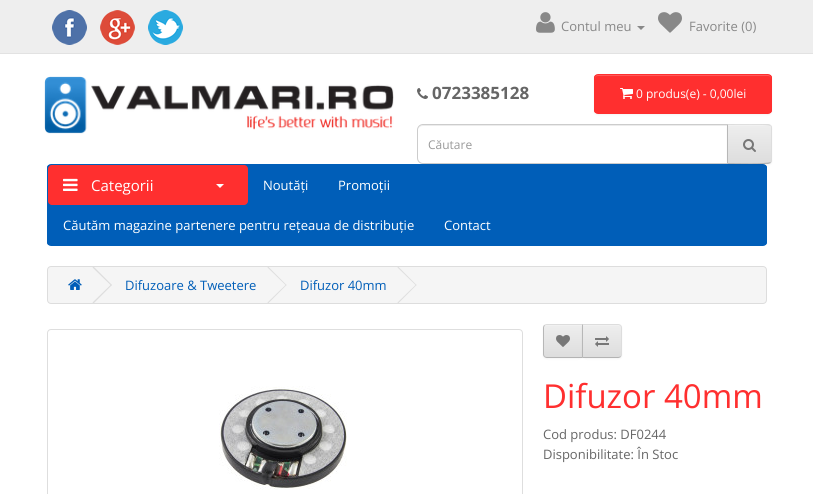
import math
import cairo


def use_color(cr, r, g, b):
  cr.set_source_rgb(r / 255, g / 255, b / 255)

def text(cr, x, y, s, family, size, color, bold=False, italic=False):
  cr.select_font_face(family, cairo.FONT_SLANT_ITALIC if italic else cairo.FONT_SLANT_NORMAL, cairo.FONT_WEIGHT_BOLD if bold else cairo.FONT_WEIGHT_NORMAL)
  cr.set_font_size(size)
  use_color(cr, *color)
  cr.move_to(x, y)
  cr.show_text(s)

def box(cr, x, y, w, h, *color):
  use_color(cr, *color)
  cr.rectangle(x, y, w, h)
  cr.fill()

def round_rect(cr, x, y, w, h, r):
  cr.new_sub_path()
  for i, (u, v) in enumerate([(x + w - r, y + h - r), (x + r, y + h - r), (x + r, y + r), (x + w - r, y + r)]):
    cr.arc(u, v, r, i * math.pi / 2, (i + 1) * math.pi / 2)
  cr.close_path()

def shadow(cr, x, y, w, h, r, blur, alpha):
  cr.push_group_with_content(cairo.CONTENT_ALPHA)
  cr.set_operator(cairo.OPERATOR_SOURCE)
  for i in range(15, -16, -2):
    e = blur * i / 6
    if min(w, h) + 2 * e > 0:
      cr.set_source_rgba(0, 0, 0, alpha * math.erfc((i - 1) / 8.5) / 2)
      round_rect(cr, x - e, y - e, w + 2 * e, h + 2 * e, max(0, min(r + e + blur * .6, min(w, h) / 2 + e)))
      cr.fill()
  cr.mask(cr.pop_group())

def picture(cr, path, x, y, w, h):
  cr.save()
  cr.set_source_surface(cairo.ImageSurface.create_from_png(path), x, y)
  cr.rectangle(x, y, w, h)
  cr.fill()
  cr.restore()

def draw(cr):
  use_color(cr, 255, 255, 255)
  cr.paint()
  box(cr, 0, 0, 813, 53, 238, 238, 238)
  box(cr, 0, 53, 813, 1, 226, 226, 226)
  picture(cr, "img_01.png", 52, 10, 35, 35)
  picture(cr, "img_02.png", 100, 10, 35, 35)
  picture(cr, "img_03.png", 148, 10, 35, 35)
  picture(cr, "img_04.png", 536, 12, 19, 21)
  use_color(cr, 136, 136, 136)
  cr.new_path()
  cr.move_to(637, 26)
  cr.line_to(645, 26)
  cr.line_to(641, 30)
  cr.close_path()
  cr.fill()
  picture(cr, "img_05.png", 658, 12, 24, 21)
  picture(cr, "img_06.png", 44, 76, 350, 58)
  picture(cr, "img_07.png", 417, 88, 11, 11)
  use_color(cr, 0, 0, 0)
  shadow(cr, 594, 75, 178, 40, 4, 1, 0.05)
  cr.save()
  round_rect(cr, 594, 74, 178, 40, 4)
  cr.clip()
  box(cr, 594, 75, 178, 38, 255, 47, 47)
  cr.restore()
  use_color(cr, 255, 89, 89)
  cr.new_path()
  cr.move_to(598, 76)
  cr.line_to(768, 76)
  cr.curve_to(770, 76, 771, 77, 771, 79)
  cr.line_to(771, 78)
  cr.curve_to(771, 76, 770, 75, 768, 75)
  cr.line_to(598, 75)
  cr.curve_to(596, 75, 595, 76, 595, 78)
  cr.line_to(595, 79)
  cr.curve_to(595, 77, 596, 76, 598, 76)
  cr.close_path()
  cr.fill()
  round_rect(cr, 594.5, 74.5, 177, 39, 3.5)
  use_color(cr, 255, 47, 47)
  cr.set_line_width(1)
  cr.stroke()
  picture(cr, "img_08.png", 620, 88, 13, 11)
  use_color(cr, 236, 236, 236)
  cr.new_path()
  cr.move_to(423, 126)
  cr.line_to(727, 126)
  cr.line_to(727, 125)
  cr.line_to(423, 125)
  cr.curve_to(420, 125, 418, 128, 418, 131)
  cr.curve_to(418, 128, 420, 126, 423, 126)
  cr.close_path()
  cr.fill()
  cr.new_path()
  cr.move_to(423, 124.5)
  cr.line_to(727.5, 124.5)
  cr.line_to(727.5, 163.5)
  cr.line_to(423, 163.5)
  cr.curve_to(420, 163.5, 417.5, 161, 417.5, 158)
  cr.line_to(417.5, 130)
  cr.curve_to(417.5, 127, 420, 124.5, 423, 124.5)
  cr.close_path()
  use_color(cr, 204, 204, 204)
  cr.stroke()
  cr.save()
  round_rect(cr, 47, 164, 720, 82, 4)
  cr.clip()
  box(cr, 47, 165, 720, 80, 0, 94, 184)
  cr.restore()
  round_rect(cr, 47.5, 164.5, 719, 81, 3.5)
  use_color(cr, 0, 94, 184)
  cr.stroke()
  use_color(cr, 0, 0, 0)
  shadow(cr, 727, 125, 45, 40, 4, 1, 0.05)
  use_color(cr, 231, 231, 231)
  cr.new_path()
  cr.move_to(727, 124)
  cr.line_to(768, 124)
  cr.curve_to(770, 124, 772, 126, 772, 128)
  cr.line_to(772, 160)
  cr.curve_to(772, 162, 770, 164, 768, 164)
  cr.line_to(727, 164)
  cr.close_path()
  cr.fill()
  cr.save()
  cr.new_path()
  cr.move_to(727, 124)
  cr.line_to(768, 124)
  cr.curve_to(770, 124, 772, 126, 772, 128)
  cr.line_to(772, 160)
  cr.curve_to(772, 162, 770, 164, 768, 164)
  cr.line_to(727, 164)
  cr.close_path()
  cr.clip()
  gradient = cairo.LinearGradient(750, 125, 750, 163)
  gradient.add_color_stop_rgba(0, 0.933, 0.933, 0.933, 1)
  gradient.add_color_stop_rgba(1, 0.867, 0.867, 0.867, 1)
  cr.set_source(gradient)
  cr.rectangle(728, 125, 44, 38)
  cr.fill()
  cr.restore()
  use_color(cr, 241, 241, 241)
  cr.new_path()
  cr.move_to(728, 126)
  cr.line_to(768, 126)
  cr.curve_to(770, 126, 771, 127, 771, 129)
  cr.line_to(771, 128)
  cr.curve_to(771, 126, 770, 125, 768, 125)
  cr.line_to(728, 125)
  cr.close_path()
  cr.fill()
  use_color(cr, 221, 221, 221)
  cr.new_path()
  cr.move_to(727, 124)
  cr.line_to(728, 125)
  cr.curve_to(733, 125, 768, 124, 770, 126)
  cr.line_to(771, 125)
  cr.line_to(768, 124)
  cr.close_path()
  cr.fill()
  cr.new_path()
  cr.move_to(772, 160)
  cr.line_to(772, 128)
  cr.curve_to(772, 127, 771.5, 126, 771, 125)
  cr.line_to(770, 126)
  cr.curve_to(771, 126, 771, 127, 771, 128)
  cr.line_to(771, 160)
  cr.curve_to(771, 161, 771, 162, 770, 162)
  cr.line_to(771, 163)
  cr.curve_to(771.5, 162, 772, 161, 772, 160)
  cr.close_path()
  cr.fill()
  use_color(cr, 179, 179, 179)
  cr.new_path()
  cr.move_to(768, 164)
  cr.line_to(771, 163)
  cr.line_to(770, 162)
  cr.curve_to(768, 164, 733, 163, 728, 163)
  cr.line_to(727, 164)
  cr.close_path()
  cr.fill()
  use_color(cr, 183, 183, 183)
  cr.new_path()
  cr.move_to(727, 124)
  cr.line_to(727, 164)
  cr.line_to(728, 163)
  cr.line_to(728, 125)
  cr.close_path()
  cr.fill()
  picture(cr, "img_09.png", 743, 139, 13, 13)
  use_color(cr, 255, 47, 47)
  round_rect(cr, 48, 165, 200, 40, 4)
  cr.fill()
  picture(cr, "img_10.png", 63, 178, 15, 13)
  use_color(cr, 255, 255, 255)
  cr.new_path()
  cr.move_to(216, 184)
  cr.line_to(224, 184)
  cr.line_to(220, 188)
  cr.close_path()
  cr.fill()
  use_color(cr, 245, 245, 245)
  round_rect(cr, 47.5, 266.5, 719, 37, 3.5)
  cr.fill_preserve()
  use_color(cr, 221, 221, 221)
  cr.stroke()
  picture(cr, "img_11.png", 68, 279, 14, 11)
  cr.new_path()
  cr.move_to(92.5, 267.5)
  cr.line_to(93.5, 266.5)
  cr.line_to(112, 285)
  cr.line_to(111, 285.5)
  cr.close_path()
  cr.fill()
  cr.new_path()
  cr.move_to(92.5, 302.5)
  cr.line_to(111, 284.5)
  cr.line_to(112, 285)
  cr.line_to(93.5, 303.5)
  cr.close_path()
  cr.fill()
  cr.new_path()
  cr.move_to(267.5, 267.5)
  cr.line_to(268, 266.5)
  cr.line_to(286.5, 285)
  cr.line_to(286, 285.5)
  cr.close_path()
  cr.fill()
  cr.new_path()
  cr.move_to(267.5, 302.5)
  cr.line_to(286, 284.5)
  cr.line_to(286.5, 285)
  cr.line_to(268, 303.5)
  cr.close_path()
  cr.fill()
  cr.new_path()
  cr.move_to(397.5, 267.5)
  cr.line_to(398, 266.5)
  cr.line_to(416.5, 285)
  cr.line_to(416, 285.5)
  cr.close_path()
  cr.fill()
  cr.new_path()
  cr.move_to(397.5, 302.5)
  cr.line_to(416, 284.5)
  cr.line_to(416.5, 285)
  cr.line_to(398, 303.5)
  cr.close_path()
  cr.fill()
  round_rect(cr, 47.5, 329.5, 475, 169, 3.5)
  use_color(cr, 222, 222, 222)
  cr.stroke()
  picture(cr, "img_12.png", 219, 386, 128, 104)
  use_color(cr, 0, 0, 0)
  shadow(cr, 543, 325, 40, 34, 4, 1, 0.05)
  cr.save()
  cr.new_path()
  cr.move_to(547, 324)
  cr.line_to(583, 324)
  cr.line_to(583, 358)
  cr.line_to(547, 358)
  cr.curve_to(545, 358, 543, 356, 543, 354)
  cr.line_to(543, 328)
  cr.curve_to(543, 326, 545, 324, 547, 324)
  cr.close_path()
  cr.clip()
  gradient = cairo.LinearGradient(563, 325, 563, 357)
  gradient.add_color_stop_rgba(0, 0.933, 0.933, 0.933, 1)
  gradient.add_color_stop_rgba(1, 0.867, 0.867, 0.867, 1)
  cr.set_source(gradient)
  cr.rectangle(543, 325, 39, 32)
  cr.fill()
  cr.restore()
  use_color(cr, 241, 241, 241)
  cr.new_path()
  cr.move_to(547, 326)
  cr.line_to(582, 326)
  cr.line_to(582, 325)
  cr.line_to(547, 325)
  cr.curve_to(545.5, 325, 544, 326.5, 544, 328)
  cr.line_to(544, 329)
  cr.curve_to(544, 327, 545, 326, 547, 326)
  cr.close_path()
  cr.fill()
  use_color(cr, 221, 221, 221)
  cr.new_path()
  cr.move_to(547, 324)
  cr.curve_to(546, 324, 545, 324.5, 544, 325)
  cr.line_to(545, 326)
  cr.curve_to(545, 325, 546, 325, 547, 325)
  cr.line_to(582, 325)
  cr.line_to(583, 324)
  cr.close_path()
  cr.fill()
  use_color(cr, 179, 179, 179)
  cr.new_path()
  cr.move_to(583, 358)
  cr.line_to(582, 357)
  cr.line_to(547, 357)
  cr.curve_to(546, 357, 545, 357, 545, 356)
  cr.line_to(544, 357)
  cr.curve_to(545, 357.5, 546, 358, 547, 358)
  cr.close_path()
  cr.fill()
  use_color(cr, 183, 183, 183)
  cr.new_path()
  cr.move_to(543, 328)
  cr.line_to(543, 354)
  cr.curve_to(543, 355, 543.5, 356, 544, 357)
  cr.line_to(545, 356)
  cr.curve_to(544, 356, 544, 355, 544, 354)
  cr.line_to(544, 328)
  cr.curve_to(544, 327, 544, 326, 545, 326)
  cr.line_to(544, 325)
  cr.curve_to(543.5, 326, 543, 327, 543, 328)
  cr.close_path()
  cr.fill()
  picture(cr, "img_13.png", 556, 335, 14, 12)
  use_color(cr, 0, 0, 0)
  shadow(cr, 582, 325, 40, 34, 4, 1, 0.05)
  cr.save()
  cr.new_path()
  cr.move_to(582, 324)
  cr.line_to(618, 324)
  cr.curve_to(620, 324, 622, 326, 622, 328)
  cr.line_to(622, 354)
  cr.curve_to(622, 356, 620, 358, 618, 358)
  cr.line_to(582, 358)
  cr.close_path()
  cr.clip()
  gradient = cairo.LinearGradient(602, 325, 602, 357)
  gradient.add_color_stop_rgba(0, 0.933, 0.933, 0.933, 1)
  gradient.add_color_stop_rgba(1, 0.867, 0.867, 0.867, 1)
  cr.set_source(gradient)
  cr.rectangle(583, 325, 39, 32)
  cr.fill()
  cr.restore()
  use_color(cr, 241, 241, 241)
  cr.new_path()
  cr.move_to(583, 326)
  cr.line_to(618, 326)
  cr.curve_to(620, 326, 621, 327, 621, 329)
  cr.line_to(621, 328)
  cr.curve_to(621, 326.5, 619.5, 325, 618, 325)
  cr.line_to(583, 325)
  cr.close_path()
  cr.fill()
  use_color(cr, 221, 221, 221)
  cr.new_path()
  cr.move_to(582, 324)
  cr.line_to(583, 325)
  cr.line_to(618, 325)
  cr.curve_to(619, 325, 620, 325, 620, 326)
  cr.line_to(621, 325)
  cr.curve_to(620, 324.5, 619, 324, 618, 324)
  cr.close_path()
  cr.fill()
  cr.new_path()
  cr.move_to(622, 354)
  cr.line_to(622, 328)
  cr.curve_to(622, 327, 621.5, 326, 621, 325)
  cr.line_to(620, 326)
  cr.curve_to(621, 326, 621, 327, 621, 328)
  cr.line_to(621, 354)
  cr.curve_to(621, 355, 621, 356, 620, 356)
  cr.line_to(621, 357)
  cr.curve_to(621.5, 356, 622, 355, 622, 354)
  cr.close_path()
  cr.fill()
  use_color(cr, 179, 179, 179)
  cr.new_path()
  cr.move_to(618, 358)
  cr.curve_to(619, 358, 620, 357.5, 621, 357)
  cr.line_to(620, 356)
  cr.curve_to(620, 357, 619, 357, 618, 357)
  cr.line_to(583, 357)
  cr.line_to(582, 358)
  cr.close_path()
  cr.fill()
  use_color(cr, 183, 183, 183)
  cr.new_path()
  cr.move_to(582, 324)
  cr.line_to(582, 358)
  cr.line_to(583, 357)
  cr.line_to(583, 325)
  cr.close_path()
  cr.fill()
  picture(cr, "img_14.png", 595, 336, 14, 11)
  text(cr, 561, 31, "Contul meu", "Open Sans", 13, (136, 136, 136))
  text(cr, 689, 31, "Favorite (0)", "Open Sans", 13, (136, 136, 136))
  text(cr, 432, 99, "0723385128", "Open Sans", 17, (102, 102, 102), bold=True)
  text(cr, 636, 98, "0 produs(e) - 0,00lei", "Open Sans", 12, (255, 255, 255))
  text(cr, 428, 149, "Căutare", "Open Sans", 12, (153, 153, 153))
  text(cr, 91, 191, "Categorii", "Open Sans", 15, (255, 255, 255))
  text(cr, 263, 190, "Noutăți", "Open Sans", 13, (255, 255, 255))
  text(cr, 338, 190, "Promoții", "Open Sans", 13, (255, 255, 255))
  text(cr, 63, 230, "Căutăm magazine partenere pentru rețeaua de distribuție", "Open Sans", 13, (255, 255, 255))
  text(cr, 444, 230, "Contact", "Open Sans", 13, (255, 255, 255))
  text(cr, 125, 290, "Difuzoare & Tweetere", "Open Sans", 13, (0, 94, 184))
  text(cr, 300, 290, "Difuzor 40mm", "Open Sans", 13, (0, 94, 184))
  text(cr, 543, 408, "Difuzor 40mm", "Open Sans", 33, (255, 47, 47))
  text(cr, 543, 439, "Cod produs: DF0244", "Open Sans", 13, (102, 102, 102))
  text(cr, 543, 459, "Disponibilitate: În Stoc", "Open Sans", 13, (102, 102, 102))


surface = cairo.ImageSurface(cairo.FORMAT_RGB24, 813, 494)
cr = cairo.Context(surface)
options = cairo.FontOptions()
options.set_hint_metrics(cairo.HINT_METRICS_OFF)
options.set_hint_style(cairo.HINT_STYLE_NONE)
cr.set_font_options(options)
cr.set_miter_limit(4)
draw(cr)
surface.write_to_png("out.png")
